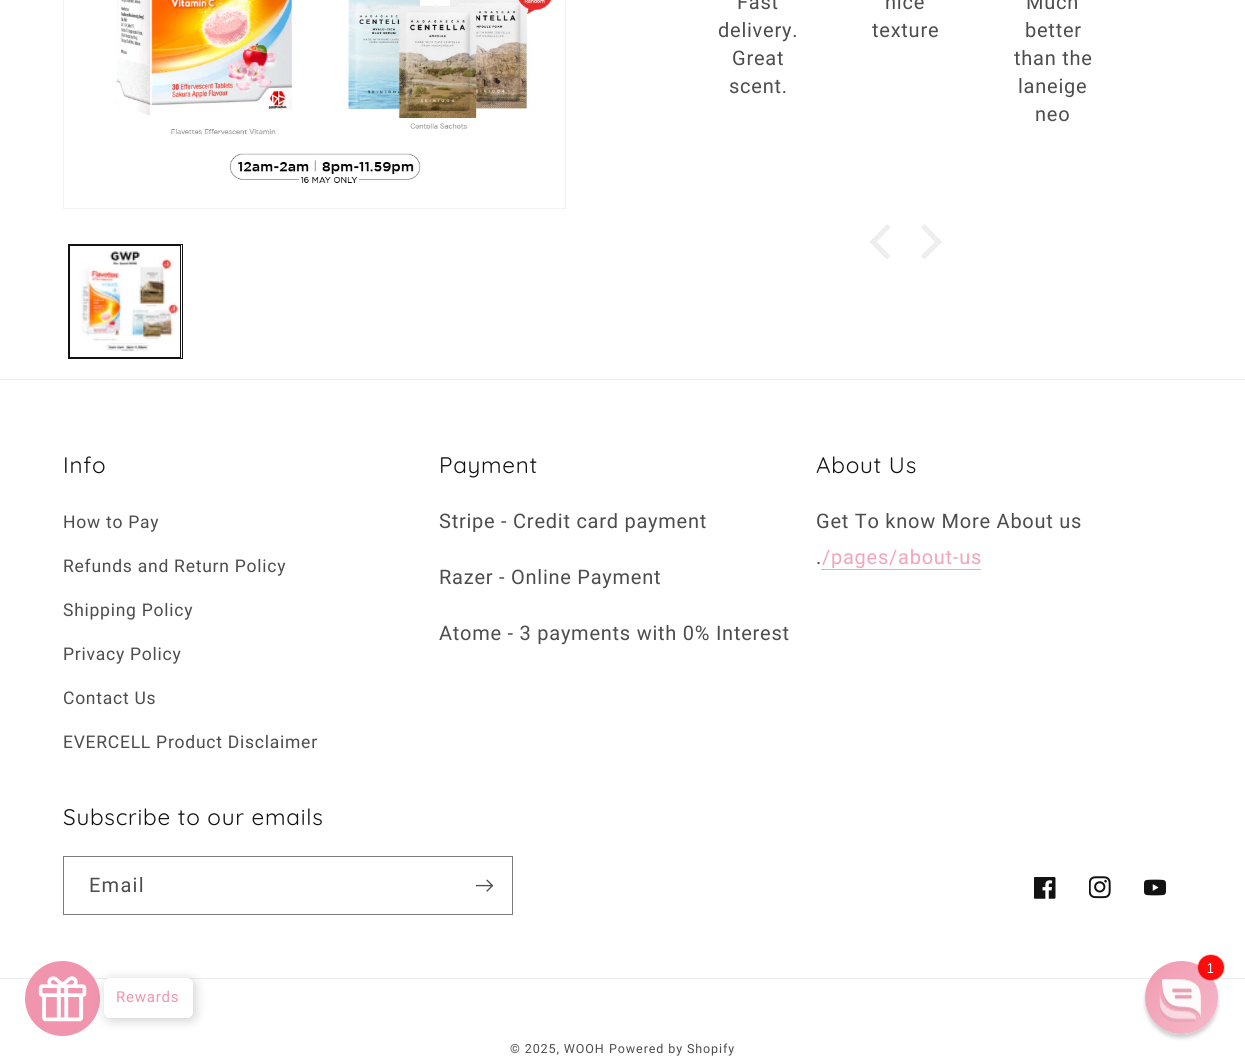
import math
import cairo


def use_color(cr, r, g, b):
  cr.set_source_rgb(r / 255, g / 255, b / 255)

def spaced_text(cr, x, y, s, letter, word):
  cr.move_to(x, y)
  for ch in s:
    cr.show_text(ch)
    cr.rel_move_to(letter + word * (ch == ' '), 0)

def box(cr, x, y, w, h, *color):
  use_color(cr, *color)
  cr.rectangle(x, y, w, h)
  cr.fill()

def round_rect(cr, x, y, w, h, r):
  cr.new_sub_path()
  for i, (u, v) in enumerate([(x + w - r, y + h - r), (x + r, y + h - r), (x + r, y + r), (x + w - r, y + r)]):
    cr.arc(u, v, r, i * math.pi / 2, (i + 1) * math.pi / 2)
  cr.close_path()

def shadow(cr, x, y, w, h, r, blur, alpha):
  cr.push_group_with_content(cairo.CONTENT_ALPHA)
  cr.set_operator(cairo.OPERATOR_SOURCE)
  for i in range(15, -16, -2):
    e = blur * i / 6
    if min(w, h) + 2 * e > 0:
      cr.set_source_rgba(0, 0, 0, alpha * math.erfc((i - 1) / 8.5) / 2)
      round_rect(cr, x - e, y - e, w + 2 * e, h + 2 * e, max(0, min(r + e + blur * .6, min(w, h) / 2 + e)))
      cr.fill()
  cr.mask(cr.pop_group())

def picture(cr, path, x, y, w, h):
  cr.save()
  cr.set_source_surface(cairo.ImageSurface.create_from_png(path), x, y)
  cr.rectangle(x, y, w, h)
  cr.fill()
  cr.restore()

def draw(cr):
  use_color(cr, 255, 255, 255)
  cr.paint()
  cr.rectangle(63.5, -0.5, 502, 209)
  use_color(cr, 243, 243, 243)
  cr.set_line_width(1)
  cr.stroke()
  picture(cr, "img_01.png", 116, 0, 437, 185)
  cr.rectangle(68.5, 244.5, 114, 114)
  use_color(cr, 18, 18, 18)
  cr.stroke()
  cr.rectangle(69.5, 245.5, 111, 112)
  cr.stroke()
  picture(cr, "img_02.png", 81, 251, 99, 101)
  use_color(cr, 238, 238, 238)
  cr.new_path()
  cr.move_to(869.5, 242)
  cr.line_to(887, 224)
  cr.line_to(890.5, 227.5)
  cr.line_to(873, 245.5)
  cr.close_path()
  cr.fill()
  cr.new_path()
  cr.move_to(869.5, 242)
  cr.line_to(873, 238)
  cr.line_to(890.5, 256)
  cr.line_to(887, 259.5)
  cr.close_path()
  cr.fill()
  cr.new_path()
  cr.move_to(921, 227.5)
  cr.line_to(924.5, 224)
  cr.line_to(942, 242)
  cr.line_to(938.5, 245.5)
  cr.close_path()
  cr.fill()
  cr.new_path()
  cr.move_to(921, 256)
  cr.line_to(938.5, 238)
  cr.line_to(942, 242)
  cr.line_to(924.5, 259.5)
  cr.close_path()
  cr.fill()
  box(cr, 0, 978, 1245, 1, 236, 236, 236)
  use_color(cr, 240, 149, 173)
  cr.arc(62.5, 998.5, 37.5, 0, 2 * math.pi)
  cr.fill()
  picture(cr, "img_03.png", 38, 976, 49, 46)
  box(cr, 0, 379, 1245, 1, 236, 236, 236)
  box(cr, 821, 569, 160, 1, 242, 165, 185)
  cr.rectangle(63.5, 856.5, 449, 58)
  use_color(cr, 125, 125, 125)
  cr.stroke()
  picture(cr, "img_04.png", 475, 879, 18, 13)
  picture(cr, "img_05.png", 1034, 877, 22, 22)
  picture(cr, "img_06.png", 1089, 876, 22, 23)
  picture(cr, "img_07.png", 1144, 879, 22, 17)
  cr.save()
  cr.set_fill_rule(cairo.FILL_RULE_EVEN_ODD)
  cr.new_path()
  cr.move_to(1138, 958)
  cr.line_to(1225, 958)
  cr.line_to(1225, 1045)
  cr.line_to(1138, 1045)
  cr.close_path()
  cr.move_to(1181.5, 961)
  cr.curve_to(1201.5, 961, 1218, 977.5, 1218, 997.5)
  cr.curve_to(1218, 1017.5, 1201.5, 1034, 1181.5, 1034)
  cr.curve_to(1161.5, 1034, 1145, 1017.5, 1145, 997.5)
  cr.curve_to(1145, 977.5, 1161.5, 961, 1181.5, 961)
  cr.close_path()
  cr.clip()
  use_color(cr, 0, 0, 0)
  shadow(cr, 1145, 965, 73, 73, 36.5, 2, 0.19)
  cr.restore()
  gradient = cairo.LinearGradient(1145, 961, 1218, 1034)
  gradient.add_color_stop_rgba(0, 0.941, 0.584, 0.678, 0.95)
  gradient.add_color_stop_rgba(1, 0.961, 0.71, 0.776, 0.95)
  cr.set_source(gradient)
  cr.arc(1181.5, 997.5, 36.5, 0, 2 * math.pi)
  cr.fill()
  picture(cr, "img_08.png", 1159, 979, 42, 43)
  cr.save()
  cr.set_fill_rule(cairo.FILL_RULE_EVEN_ODD)
  cr.new_path()
  cr.move_to(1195, 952)
  cr.line_to(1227, 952)
  cr.line_to(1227, 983)
  cr.line_to(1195, 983)
  cr.close_path()
  cr.move_to(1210.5, 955)
  cr.line_to(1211.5, 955)
  cr.curve_to(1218.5, 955, 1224, 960.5, 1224, 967.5)
  cr.curve_to(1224, 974.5, 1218.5, 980, 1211.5, 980)
  cr.line_to(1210.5, 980)
  cr.curve_to(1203.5, 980, 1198, 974.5, 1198, 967.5)
  cr.curve_to(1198, 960.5, 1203.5, 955, 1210.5, 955)
  cr.close_path()
  cr.clip()
  use_color(cr, 187, 0, 0)
  shadow(cr, 1198, 955, 26, 25, 12.5, 0.5, 0.95)
  cr.restore()
  cr.set_source_rgba(1, 0, 0, 0.95)
  round_rect(cr, 1198, 955, 26, 25, 12.5)
  cr.fill()
  use_color(cr, 0, 0, 0)
  shadow(cr, 106, 980, 89, 40, 6, 6, 0.2)
  use_color(cr, 255, 255, 255)
  round_rect(cr, 104, 978, 89, 40, 6)
  cr.fill()
  cr.select_font_face("Roboto")
  cr.set_font_size(20)
  use_color(cr, 77, 77, 77)
  spaced_text(cr, 737, 9, "Fast", 0.75, 0)
  spaced_text(cr, 718, 37, "delivery.", 0.75, 0)
  spaced_text(cr, 732, 65, "Great", 0.75, 0)
  spaced_text(cr, 729, 93, "scent.", 0.75, 0)
  spaced_text(cr, 885, 9, "nice", 0.75, 0)
  spaced_text(cr, 872, 37, "texture", 0.75, 0)
  spaced_text(cr, 1026, 9, "Much", 0.75, 0)
  spaced_text(cr, 1025, 37, "better", 0.75, 0)
  spaced_text(cr, 1014, 65, "than the", 0.75, 0)
  spaced_text(cr, 1018, 93, "laneige", 0.75, 0)
  spaced_text(cr, 1035, 121, "neo", 0.75, 0)
  cr.select_font_face("Quicksand")
  cr.set_font_size(22.5)
  use_color(cr, 18, 18, 18)
  spaced_text(cr, 63, 473, "Info", 0.75, 0)
  cr.select_font_face("Roboto")
  cr.set_font_size(17.5)
  use_color(cr, 77, 77, 77)
  spaced_text(cr, 63, 528, "How to Pay", 0.75, 0)
  spaced_text(cr, 63, 572, "Refunds and Return Policy", 0.75, 0)
  spaced_text(cr, 63, 616, "Shipping Policy", 0.75, 0)
  spaced_text(cr, 63, 660, "Privacy Policy", 0.75, 0)
  spaced_text(cr, 63, 704, "Contact Us", 0.75, 0)
  spaced_text(cr, 63, 748, "EVERCELL Product Disclaimer", 0.75, 0)
  cr.select_font_face("Quicksand")
  cr.set_font_size(22.5)
  use_color(cr, 18, 18, 18)
  spaced_text(cr, 439, 473, "Payment", 0.75, 0)
  cr.select_font_face("Roboto")
  cr.set_font_size(20)
  use_color(cr, 77, 77, 77)
  spaced_text(cr, 439, 528, "Stripe - Credit card payment", 0.75, 0)
  spaced_text(cr, 439, 584, "Razer - Online Payment", 0.75, 0)
  spaced_text(cr, 439, 640, "Atome - 3 payments with 0% Interest", 0.75, 0)
  cr.select_font_face("Quicksand")
  cr.set_font_size(22.5)
  use_color(cr, 18, 18, 18)
  spaced_text(cr, 816, 473, "About Us", 0.75, 0)
  cr.select_font_face("Roboto")
  cr.set_font_size(20)
  use_color(cr, 77, 77, 77)
  spaced_text(cr, 816, 528, "Get To know More About us", 0.75, 0)
  spaced_text(cr, 816, 564, ".", 0.75, 0)
  use_color(cr, 242, 165, 185)
  spaced_text(cr, 822, 564, "/pages/about-us", 0.75, 0)
  cr.select_font_face("Quicksand")
  cr.set_font_size(22.5)
  use_color(cr, 18, 18, 18)
  spaced_text(cr, 63, 825, "Subscribe to our emails", 0.75, 0)
  cr.select_font_face("Roboto")
  cr.set_font_size(20)
  use_color(cr, 77, 77, 77)
  spaced_text(cr, 89, 892, "Email", 1.25, 0)
  cr.set_font_size(12.5)
  spaced_text(cr, 510, 1053, "© 2025, WOOH", 0.9, 0)
  spaced_text(cr, 609, 1053, "Powered by Shopify", 0.9, 0)
  cr.select_font_face("Nunito")
  cr.set_font_size(14)
  use_color(cr, 253, 253, 253)
  spaced_text(cr, 1206, 973, "1", 0.75, 0)
  cr.select_font_face("Roboto")
  cr.set_font_size(15)
  use_color(cr, 240, 149, 173)
  spaced_text(cr, 116, 1002, "Rewards", 0.75, 0)


surface = cairo.ImageSurface(cairo.FORMAT_RGB24, 1245, 1061)
cr = cairo.Context(surface)
options = cairo.FontOptions()
options.set_hint_metrics(cairo.HINT_METRICS_OFF)
options.set_hint_style(cairo.HINT_STYLE_NONE)
cr.set_font_options(options)
cr.set_miter_limit(4)
draw(cr)
surface.write_to_png("out.png")
